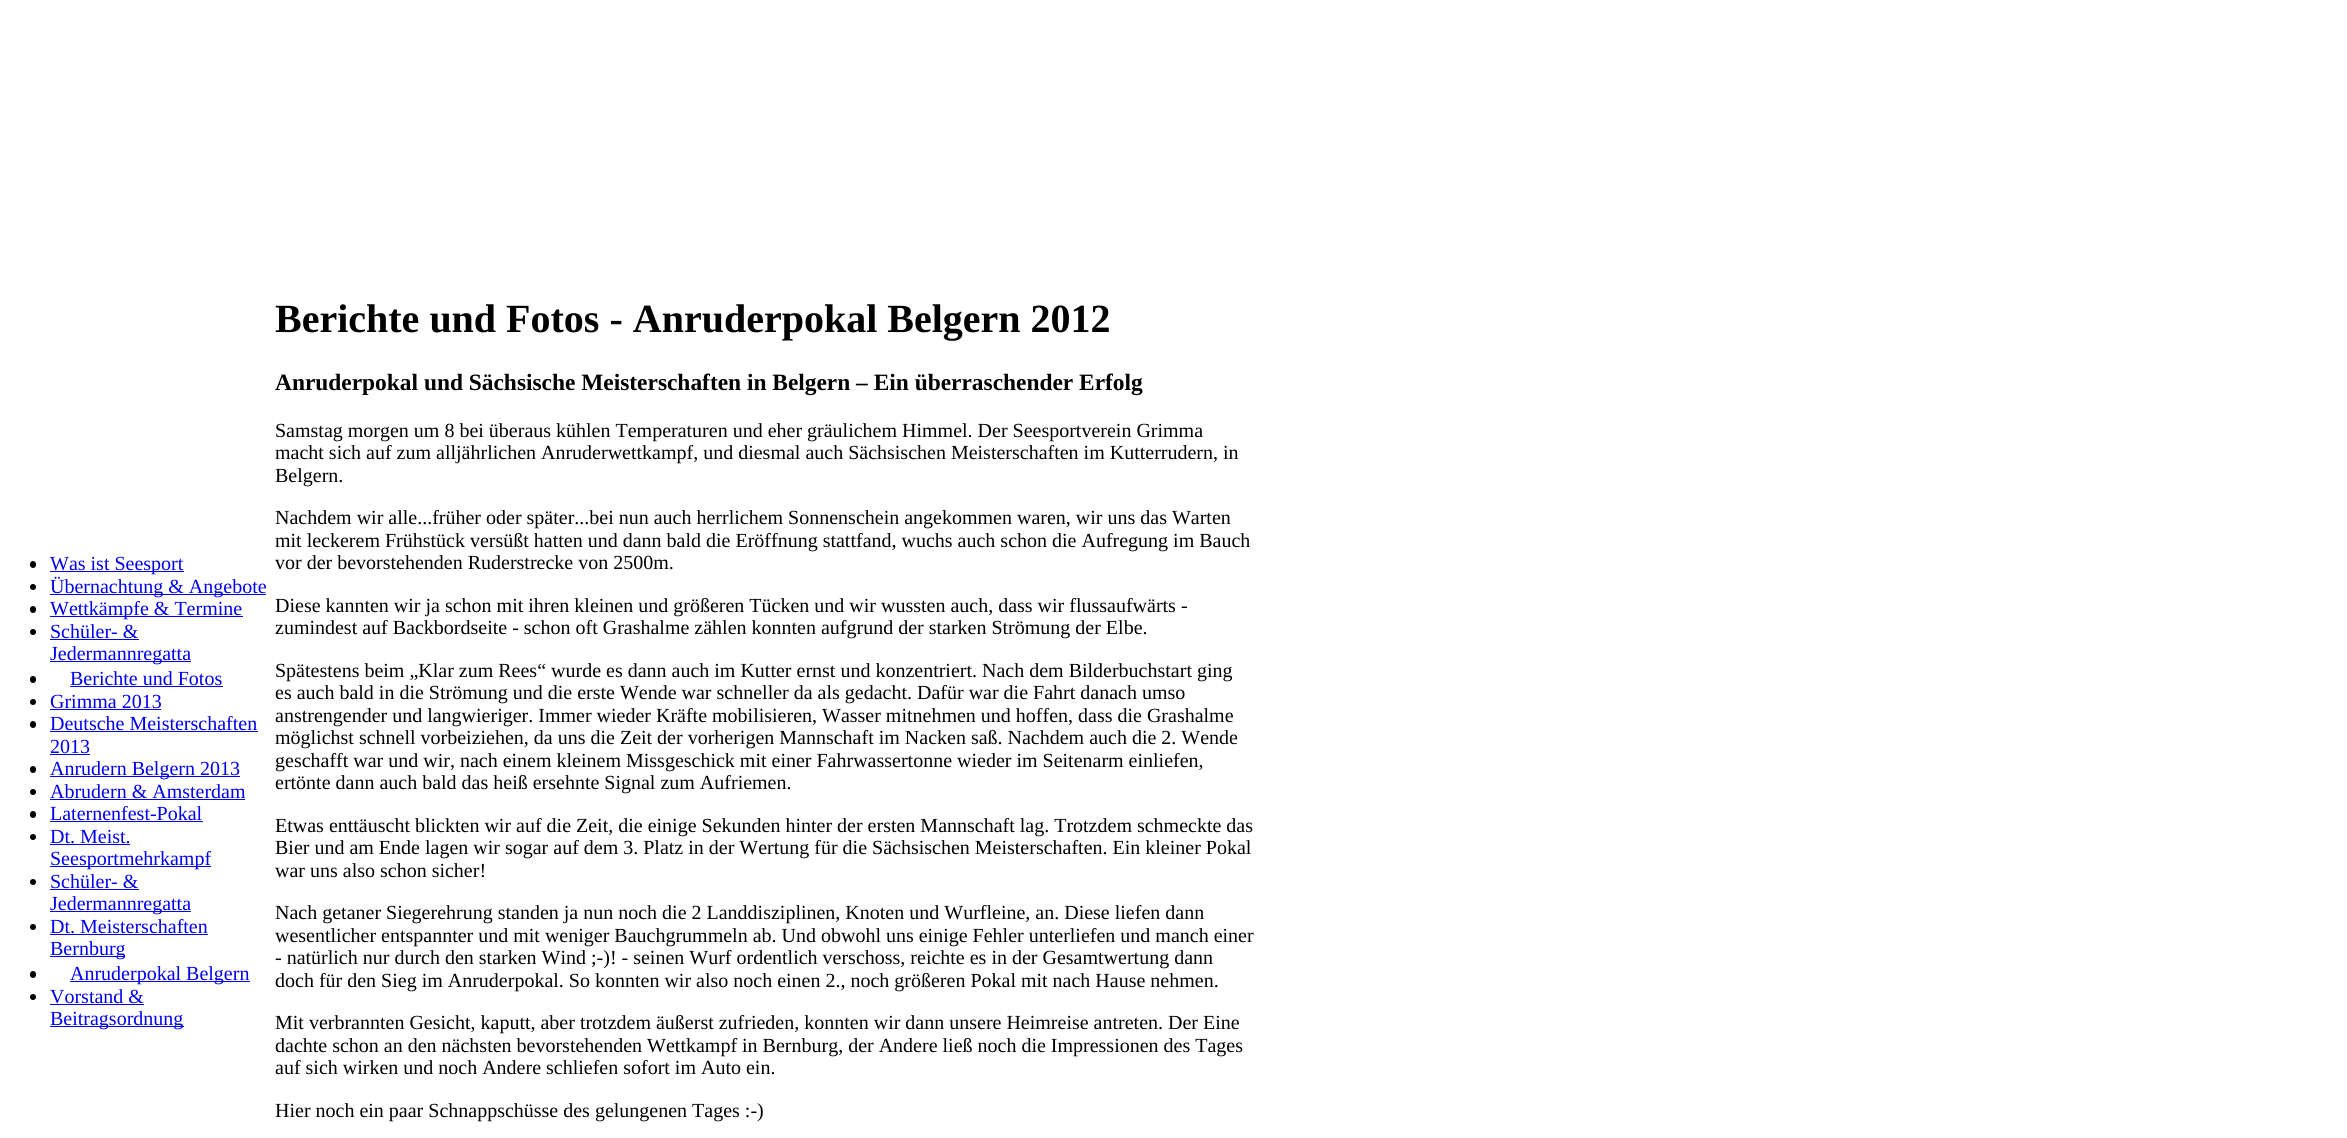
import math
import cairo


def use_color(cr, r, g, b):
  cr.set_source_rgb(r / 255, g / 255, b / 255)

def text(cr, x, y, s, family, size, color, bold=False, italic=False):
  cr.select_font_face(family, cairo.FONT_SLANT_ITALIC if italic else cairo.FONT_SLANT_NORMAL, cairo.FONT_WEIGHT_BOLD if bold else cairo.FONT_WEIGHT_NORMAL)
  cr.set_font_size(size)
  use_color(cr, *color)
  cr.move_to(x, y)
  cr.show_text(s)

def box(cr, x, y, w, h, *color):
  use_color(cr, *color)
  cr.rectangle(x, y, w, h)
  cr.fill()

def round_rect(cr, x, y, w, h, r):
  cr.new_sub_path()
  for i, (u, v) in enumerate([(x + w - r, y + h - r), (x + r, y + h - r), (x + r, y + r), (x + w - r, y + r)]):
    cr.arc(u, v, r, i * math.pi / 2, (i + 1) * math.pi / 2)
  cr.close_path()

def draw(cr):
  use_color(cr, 255, 255, 255)
  cr.paint()
  use_color(cr, 0, 0, 0)
  round_rect(cr, 30, 561, 6, 7, 3)
  cr.fill()
  box(cr, 50, 571, 134, 1, 0, 0, 238)
  use_color(cr, 0, 0, 0)
  cr.arc(33, 587, 3, 0, 2 * math.pi)
  cr.fill()
  box(cr, 50, 594, 216, 1, 0, 0, 238)
  use_color(cr, 0, 0, 0)
  round_rect(cr, 30, 606, 6, 7, 3)
  cr.fill()
  box(cr, 50, 616, 193, 1, 0, 0, 238)
  use_color(cr, 0, 0, 0)
  cr.arc(33, 632, 3, 0, 2 * math.pi)
  cr.fill()
  box(cr, 50, 639, 89, 1, 0, 0, 238)
  box(cr, 50, 661, 141, 1, 0, 0, 238)
  use_color(cr, 0, 0, 0)
  round_rect(cr, 30, 676, 6, 7, 3)
  cr.fill()
  box(cr, 70, 686, 153, 1, 0, 0, 238)
  use_color(cr, 0, 0, 0)
  cr.arc(33, 702, 3, 0, 2 * math.pi)
  cr.fill()
  box(cr, 50, 709, 111, 1, 0, 0, 238)
  use_color(cr, 0, 0, 0)
  round_rect(cr, 30, 721, 6, 7, 3)
  cr.fill()
  box(cr, 50, 731, 208, 1, 0, 0, 238)
  box(cr, 50, 754, 40, 1, 0, 0, 238)
  use_color(cr, 0, 0, 0)
  round_rect(cr, 30, 766, 6, 7, 3)
  cr.fill()
  box(cr, 50, 776, 190, 1, 0, 0, 238)
  use_color(cr, 0, 0, 0)
  cr.arc(33, 792, 3, 0, 2 * math.pi)
  cr.fill()
  box(cr, 50, 799, 195, 1, 0, 0, 238)
  use_color(cr, 0, 0, 0)
  round_rect(cr, 30, 811, 6, 7, 3)
  cr.fill()
  box(cr, 50, 821, 153, 1, 0, 0, 238)
  use_color(cr, 0, 0, 0)
  cr.arc(33, 837, 3, 0, 2 * math.pi)
  cr.fill()
  box(cr, 50, 844, 80, 1, 0, 0, 238)
  box(cr, 50, 866, 161, 1, 0, 0, 238)
  use_color(cr, 0, 0, 0)
  cr.arc(33, 882, 3, 0, 2 * math.pi)
  cr.fill()
  box(cr, 50, 889, 89, 1, 0, 0, 238)
  box(cr, 50, 911, 141, 1, 0, 0, 238)
  use_color(cr, 0, 0, 0)
  cr.arc(33, 927, 3, 0, 2 * math.pi)
  cr.fill()
  box(cr, 50, 934, 158, 1, 0, 0, 238)
  box(cr, 50, 956, 75, 1, 0, 0, 238)
  use_color(cr, 0, 0, 0)
  round_rect(cr, 30, 971, 6, 7, 3)
  cr.fill()
  box(cr, 70, 981, 180, 1, 0, 0, 238)
  use_color(cr, 0, 0, 0)
  cr.arc(33, 997, 3, 0, 2 * math.pi)
  cr.fill()
  box(cr, 50, 1004, 94, 1, 0, 0, 238)
  box(cr, 50, 1026, 134, 1, 0, 0, 238)
  text(cr, 50, 570, "Was ist Seesport", "Liberation Serif", 20, (0, 0, 238))
  text(cr, 50, 593, "Übernachtung & Angebote", "Liberation Serif", 20, (0, 0, 238))
  text(cr, 50, 615, "Wettkämpfe & Termine", "Liberation Serif", 20, (0, 0, 238))
  text(cr, 50, 638, "Schüler- &", "Liberation Serif", 20, (0, 0, 238))
  text(cr, 50, 660, "Jedermannregatta", "Liberation Serif", 20, (0, 0, 238))
  text(cr, 70, 685, "Berichte und Fotos", "Liberation Serif", 20, (0, 0, 238))
  text(cr, 50, 708, "Grimma 2013", "Liberation Serif", 20, (0, 0, 238))
  text(cr, 50, 730, "Deutsche Meisterschaften", "Liberation Serif", 20, (0, 0, 238))
  text(cr, 50, 753, "2013", "Liberation Serif", 20, (0, 0, 238))
  text(cr, 50, 775, "Anrudern Belgern 2013", "Liberation Serif", 20, (0, 0, 238))
  text(cr, 50, 798, "Abrudern & Amsterdam", "Liberation Serif", 20, (0, 0, 238))
  text(cr, 50, 820, "Laternenfest-Pokal", "Liberation Serif", 20, (0, 0, 238))
  text(cr, 50, 843, "Dt. Meist.", "Liberation Serif", 20, (0, 0, 238))
  text(cr, 50, 865, "Seesportmehrkampf", "Liberation Serif", 20, (0, 0, 238))
  text(cr, 50, 888, "Schüler- &", "Liberation Serif", 20, (0, 0, 238))
  text(cr, 50, 910, "Jedermannregatta", "Liberation Serif", 20, (0, 0, 238))
  text(cr, 50, 933, "Dt. Meisterschaften", "Liberation Serif", 20, (0, 0, 238))
  text(cr, 50, 955, "Bernburg", "Liberation Serif", 20, (0, 0, 238))
  text(cr, 70, 980, "Anruderpokal Belgern", "Liberation Serif", 20, (0, 0, 238))
  text(cr, 50, 1003, "Vorstand &", "Liberation Serif", 20, (0, 0, 238))
  text(cr, 50, 1025, "Beitragsordnung", "Liberation Serif", 20, (0, 0, 238))
  text(cr, 275, 332, "Berichte und Fotos - Anruderpokal Belgern 2012", "Liberation Serif", 40, (0, 0, 0), bold=True)
  text(cr, 275, 390, "Anruderpokal und Sächsische Meisterschaften in Belgern – Ein überraschender Erfolg", "Liberation Serif", 23.4, (0, 0, 0), bold=True)
  text(cr, 275, 437, "Samstag morgen um 8 bei überaus kühlen Temperaturen und eher gräulichem Himmel. Der Seesportverein Grimma", "Liberation Serif", 20, (0, 0, 0))
  text(cr, 275, 459, "macht sich auf zum alljährlichen Anruderwettkampf, und diesmal auch Sächsischen Meisterschaften im Kutterrudern, in", "Liberation Serif", 20, (0, 0, 0))
  text(cr, 275, 482, "Belgern.", "Liberation Serif", 20, (0, 0, 0))
  text(cr, 275, 524, "Nachdem wir alle...früher oder später...bei nun auch herrlichem Sonnenschein angekommen waren, wir uns das Warten", "Liberation Serif", 20, (0, 0, 0))
  text(cr, 275, 547, "mit leckerem Frühstück versüßt hatten und dann bald die Eröffnung stattfand, wuchs auch schon die Aufregung im Bauch", "Liberation Serif", 20, (0, 0, 0))
  text(cr, 275, 569, "vor der bevorstehenden Ruderstrecke von 2500m.", "Liberation Serif", 20, (0, 0, 0))
  text(cr, 275, 612, "Diese kannten wir ja schon mit ihren kleinen und größeren Tücken und wir wussten auch, dass wir flussaufwärts -", "Liberation Serif", 20, (0, 0, 0))
  text(cr, 275, 634, "zumindest auf Backbordseite - schon oft Grashalme zählen konnten aufgrund der starken Strömung der Elbe.", "Liberation Serif", 20, (0, 0, 0))
  text(cr, 275, 677, "Spätestens beim „Klar zum Rees“ wurde es dann auch im Kutter ernst und konzentriert. Nach dem Bilderbuchstart ging", "Liberation Serif", 20, (0, 0, 0))
  text(cr, 275, 699, "es auch bald in die Strömung und die erste Wende war schneller da als gedacht. Dafür war die Fahrt danach umso", "Liberation Serif", 20, (0, 0, 0))
  text(cr, 275, 722, "anstrengender und langwieriger. Immer wieder Kräfte mobilisieren, Wasser mitnehmen und hoffen, dass die Grashalme", "Liberation Serif", 20, (0, 0, 0))
  text(cr, 275, 744, "möglichst schnell vorbeiziehen, da uns die Zeit der vorherigen Mannschaft im Nacken saß. Nachdem auch die 2. Wende", "Liberation Serif", 20, (0, 0, 0))
  text(cr, 275, 767, "geschafft war und wir, nach einem kleinem Missgeschick mit einer Fahrwassertonne wieder im Seitenarm einliefen,", "Liberation Serif", 20, (0, 0, 0))
  text(cr, 275, 789, "ertönte dann auch bald das heiß ersehnte Signal zum Aufriemen.", "Liberation Serif", 20, (0, 0, 0))
  text(cr, 275, 832, "Etwas enttäuscht blickten wir auf die Zeit, die einige Sekunden hinter der ersten Mannschaft lag. Trotzdem schmeckte das", "Liberation Serif", 20, (0, 0, 0))
  text(cr, 275, 854, "Bier und am Ende lagen wir sogar auf dem 3. Platz in der Wertung für die Sächsischen Meisterschaften. Ein kleiner Pokal", "Liberation Serif", 20, (0, 0, 0))
  text(cr, 275, 877, "war uns also schon sicher!", "Liberation Serif", 20, (0, 0, 0))
  text(cr, 275, 919, "Nach getaner Siegerehrung standen ja nun noch die 2 Landdisziplinen, Knoten und Wurfleine, an. Diese liefen dann", "Liberation Serif", 20, (0, 0, 0))
  text(cr, 275, 942, "wesentlicher entspannter und mit weniger Bauchgrummeln ab. Und obwohl uns einige Fehler unterliefen und manch einer", "Liberation Serif", 20, (0, 0, 0))
  text(cr, 275, 964, "- natürlich nur durch den starken Wind ;-)! - seinen Wurf ordentlich verschoss, reichte es in der Gesamtwertung dann", "Liberation Serif", 20, (0, 0, 0))
  text(cr, 275, 987, "doch für den Sieg im Anruderpokal. So konnten wir also noch einen 2., noch größeren Pokal mit nach Hause nehmen.", "Liberation Serif", 20, (0, 0, 0))
  text(cr, 275, 1029, "Mit verbrannten Gesicht, kaputt, aber trotzdem äußerst zufrieden, konnten wir dann unsere Heimreise antreten. Der Eine", "Liberation Serif", 20, (0, 0, 0))
  text(cr, 275, 1052, "dachte schon an den nächsten bevorstehenden Wettkampf in Bernburg, der Andere ließ noch die Impressionen des Tages", "Liberation Serif", 20, (0, 0, 0))
  text(cr, 275, 1074, "auf sich wirken und noch Andere schliefen sofort im Auto ein.", "Liberation Serif", 20, (0, 0, 0))
  text(cr, 275, 1117, "Hier noch ein paar Schnappschüsse des gelungenen Tages :-)", "Liberation Serif", 20, (0, 0, 0))


surface = cairo.ImageSurface(cairo.FORMAT_RGB24, 2347, 1138)
cr = cairo.Context(surface)
options = cairo.FontOptions()
options.set_hint_metrics(cairo.HINT_METRICS_OFF)
options.set_hint_style(cairo.HINT_STYLE_NONE)
cr.set_font_options(options)
cr.set_miter_limit(4)
draw(cr)
surface.write_to_png("out.png")
